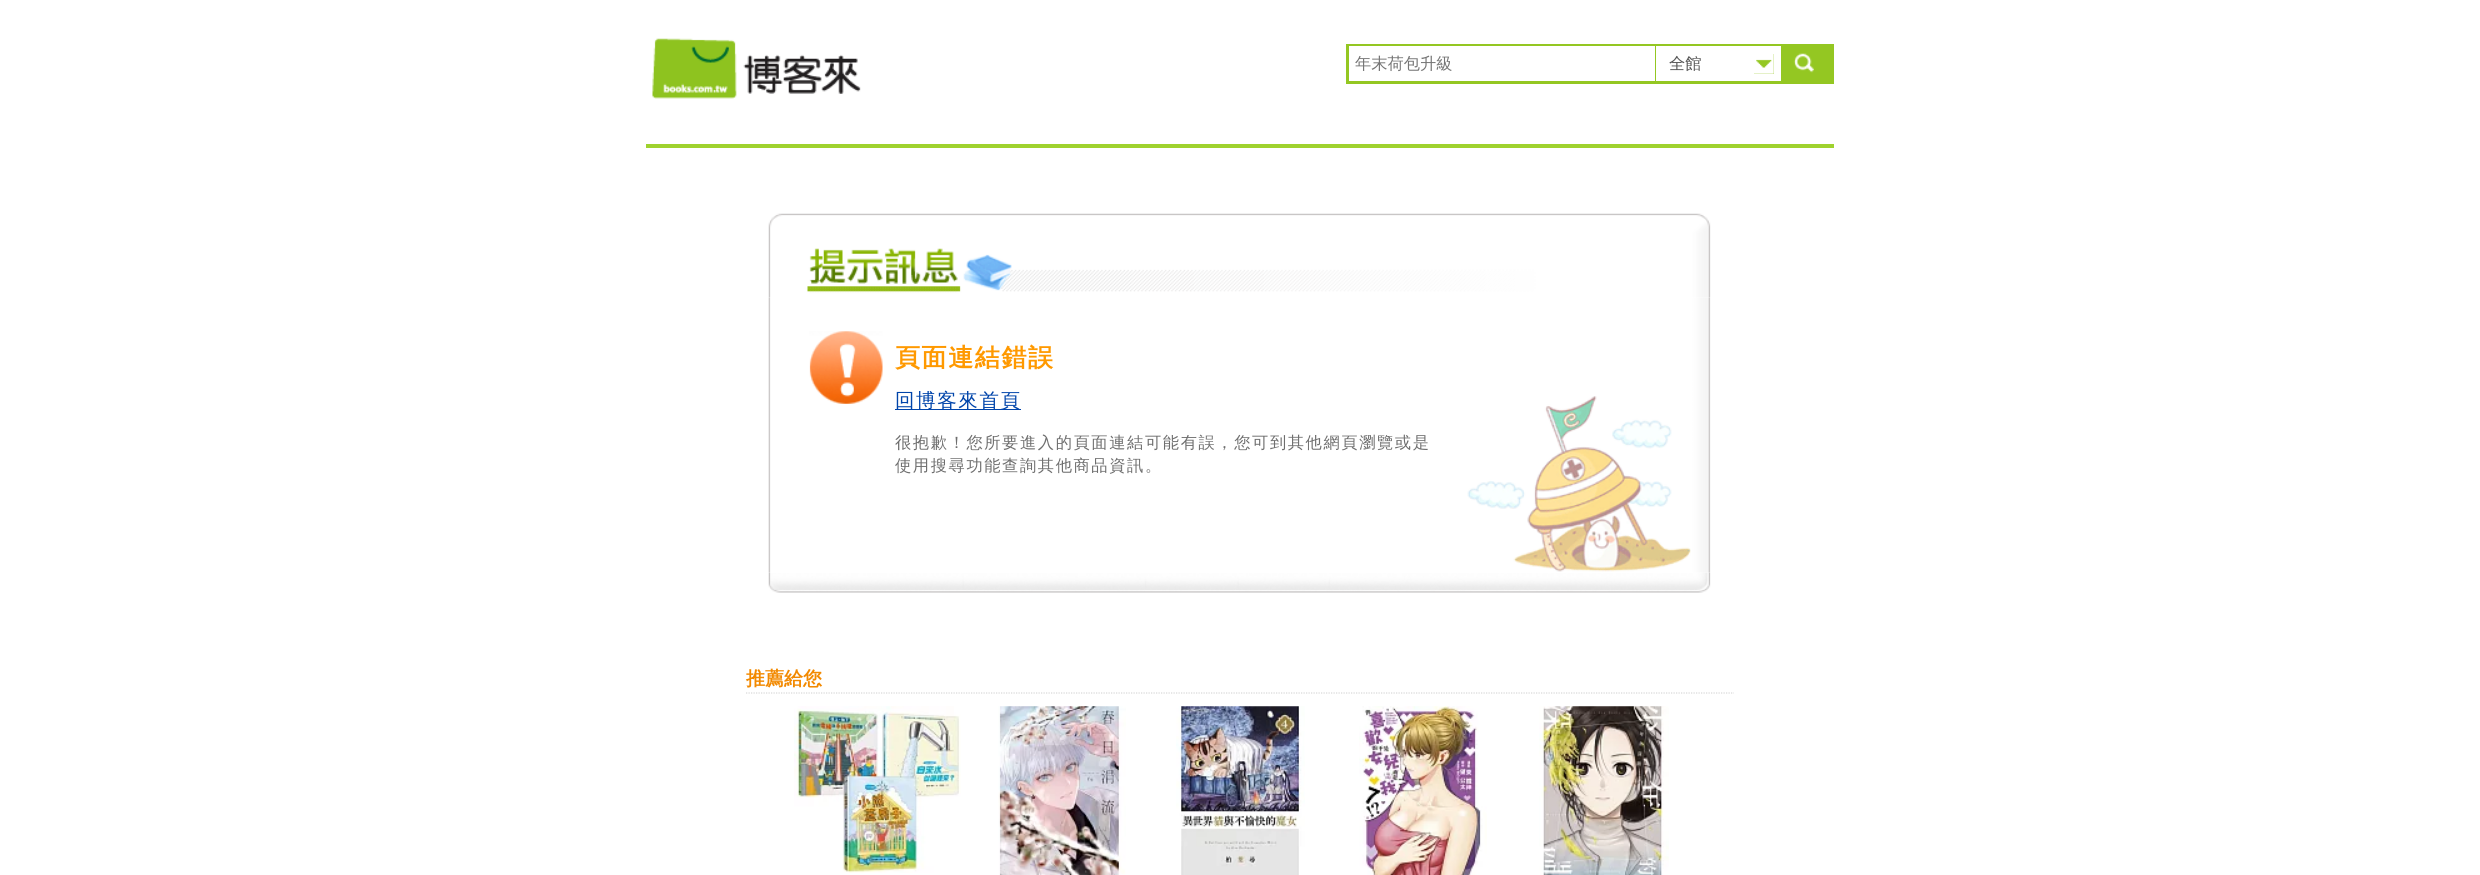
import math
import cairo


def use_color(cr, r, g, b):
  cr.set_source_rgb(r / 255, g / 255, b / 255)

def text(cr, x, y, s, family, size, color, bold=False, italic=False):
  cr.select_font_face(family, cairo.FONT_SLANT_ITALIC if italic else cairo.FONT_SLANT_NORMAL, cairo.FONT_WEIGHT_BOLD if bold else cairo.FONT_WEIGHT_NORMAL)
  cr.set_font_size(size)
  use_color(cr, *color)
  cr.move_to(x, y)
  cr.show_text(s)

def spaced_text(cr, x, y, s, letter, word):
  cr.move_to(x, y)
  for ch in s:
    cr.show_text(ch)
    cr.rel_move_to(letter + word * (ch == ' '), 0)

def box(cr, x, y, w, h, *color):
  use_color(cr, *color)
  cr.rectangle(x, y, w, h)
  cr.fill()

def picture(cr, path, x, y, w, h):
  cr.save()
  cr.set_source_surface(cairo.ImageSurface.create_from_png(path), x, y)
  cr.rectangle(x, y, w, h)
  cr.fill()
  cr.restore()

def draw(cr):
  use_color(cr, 255, 255, 255)
  cr.paint()
  picture(cr, "img_01.png", 652, 38, 209, 61)
  box(cr, 646, 144, 1188, 4, 159, 210, 46)
  box(cr, 1346, 44, 488, 40, 148, 199, 34)
  box(cr, 1349, 46, 306, 35, 255, 255, 255)
  box(cr, 1656, 46, 125, 35, 255, 255, 255)
  box(cr, 1754, 54, 20, 20, 148, 199, 34)
  picture(cr, "img_02.png", 1754, 54, 20, 20)
  picture(cr, "img_03.png", 1793, 53, 21, 20)
  picture(cr, "img_04.png", 768, 213, 943, 85)
  picture(cr, "img_08.png", 768, 572, 943, 21)
  picture(cr, "img_05.png", 768, 297, 943, 276)
  picture(cr, "img_06.png", 809, 331, 74, 73)
  box(cr, 895, 409, 126, 1, 0, 68, 170)
  picture(cr, "img_07.png", 1467, 396, 224, 176)
  cr.new_path()
  cr.move_to(746, 693)
  cr.line_to(1734, 693)
  use_color(cr, 216, 216, 216)
  cr.set_line_width(1.2)
  cr.set_dash([1.25, 1.25])
  cr.stroke()
  picture(cr, "img_09.png", 794, 706, 167, 167)
  picture(cr, "img_10.png", 998, 706, 128, 169)
  picture(cr, "img_11.png", 1176, 706, 129, 169)
  picture(cr, "img_12.png", 1359, 706, 128, 169)
  picture(cr, "img_13.png", 1539, 706, 130, 169)
  text(cr, 1355, 69, "年末荷包升級", "WenQuanYi Zen Hei Medium", 16.25, (117, 117, 117))
  text(cr, 1669, 69, "全館", "WenQuanYi Zen Hei Medium", 16.25, (85, 85, 85))
  cr.select_font_face("WenQuanYi Zen Hei", cairo.FONT_SLANT_NORMAL, cairo.FONT_WEIGHT_BOLD)
  cr.set_font_size(25)
  use_color(cr, 255, 153, 0)
  spaced_text(cr, 895, 366, "頁面連結錯誤", 1.6, 0)
  cr.select_font_face("WenQuanYi Zen Hei Medium")
  cr.set_font_size(19.5)
  use_color(cr, 0, 68, 170)
  spaced_text(cr, 895, 407, "回博客來首頁", 1.6, 0)
  cr.set_font_size(16.25)
  use_color(cr, 110, 110, 110)
  spaced_text(cr, 895, 448, "很抱歉！您所要進入的頁面連結可能有誤，您可到其他網頁瀏覽或是", 1.6, 0)
  spaced_text(cr, 895, 471, "使用搜尋功能查詢其他商品資訊。", 1.6, 0)
  text(cr, 746, 685, "推薦給您", "WenQuanYi Zen Hei", 19, (242, 137, 0), bold=True)


surface = cairo.ImageSurface(cairo.FORMAT_RGB24, 2480, 875)
cr = cairo.Context(surface)
options = cairo.FontOptions()
options.set_hint_metrics(cairo.HINT_METRICS_OFF)
options.set_hint_style(cairo.HINT_STYLE_NONE)
cr.set_font_options(options)
cr.set_miter_limit(4)
draw(cr)
surface.write_to_png("out.png")
